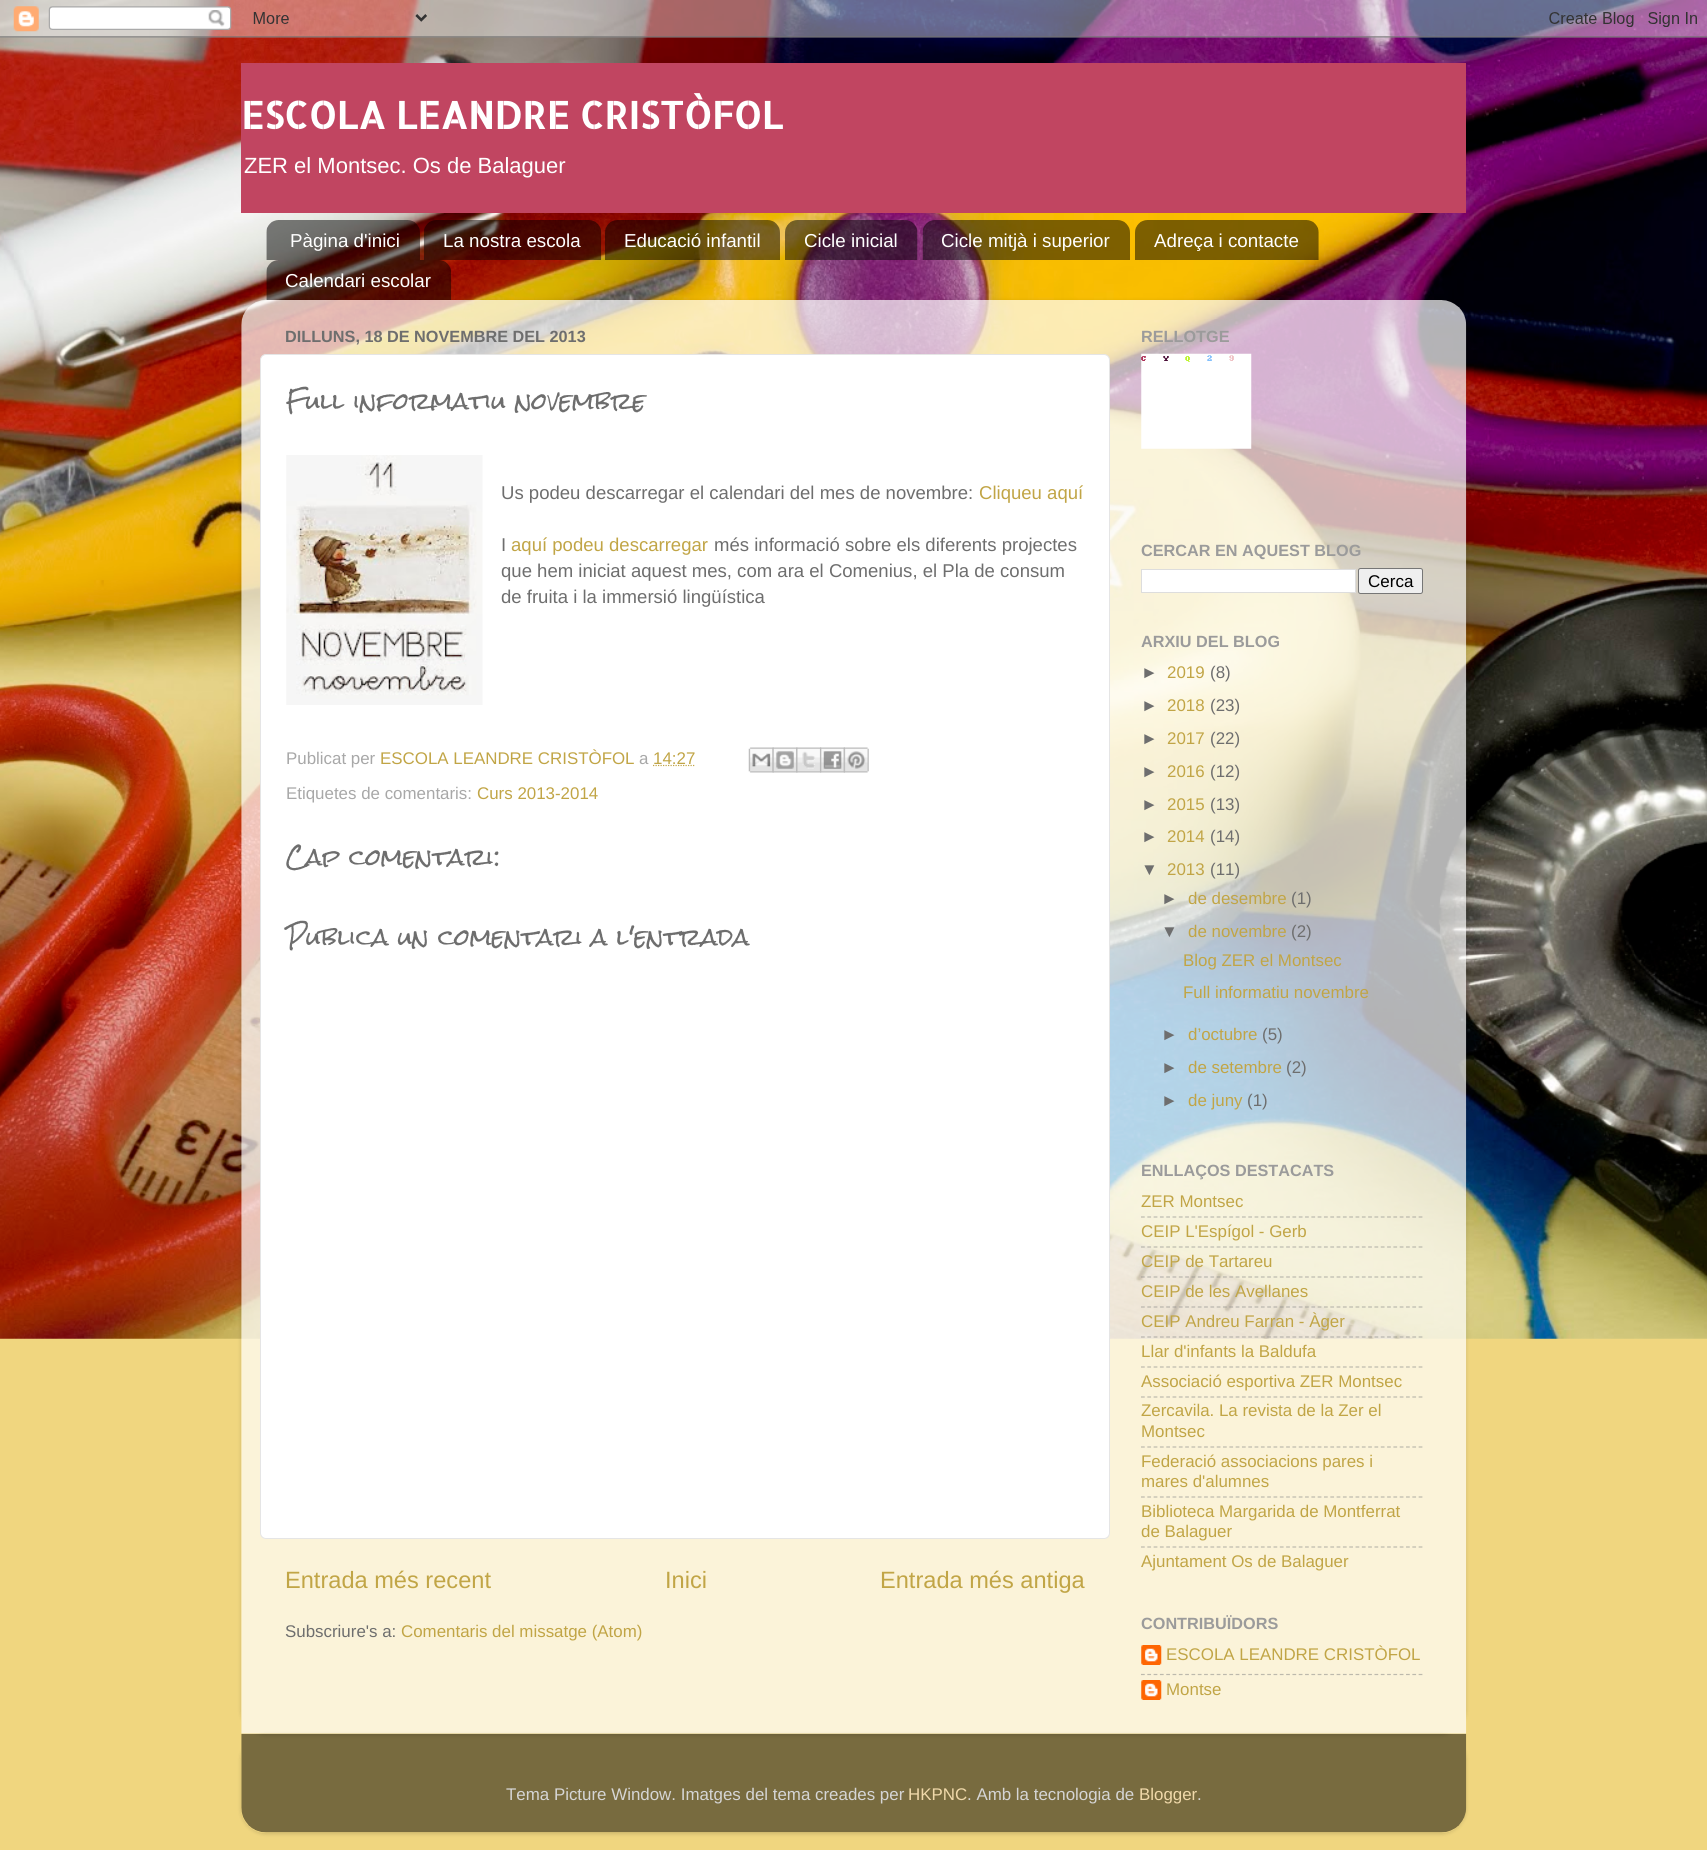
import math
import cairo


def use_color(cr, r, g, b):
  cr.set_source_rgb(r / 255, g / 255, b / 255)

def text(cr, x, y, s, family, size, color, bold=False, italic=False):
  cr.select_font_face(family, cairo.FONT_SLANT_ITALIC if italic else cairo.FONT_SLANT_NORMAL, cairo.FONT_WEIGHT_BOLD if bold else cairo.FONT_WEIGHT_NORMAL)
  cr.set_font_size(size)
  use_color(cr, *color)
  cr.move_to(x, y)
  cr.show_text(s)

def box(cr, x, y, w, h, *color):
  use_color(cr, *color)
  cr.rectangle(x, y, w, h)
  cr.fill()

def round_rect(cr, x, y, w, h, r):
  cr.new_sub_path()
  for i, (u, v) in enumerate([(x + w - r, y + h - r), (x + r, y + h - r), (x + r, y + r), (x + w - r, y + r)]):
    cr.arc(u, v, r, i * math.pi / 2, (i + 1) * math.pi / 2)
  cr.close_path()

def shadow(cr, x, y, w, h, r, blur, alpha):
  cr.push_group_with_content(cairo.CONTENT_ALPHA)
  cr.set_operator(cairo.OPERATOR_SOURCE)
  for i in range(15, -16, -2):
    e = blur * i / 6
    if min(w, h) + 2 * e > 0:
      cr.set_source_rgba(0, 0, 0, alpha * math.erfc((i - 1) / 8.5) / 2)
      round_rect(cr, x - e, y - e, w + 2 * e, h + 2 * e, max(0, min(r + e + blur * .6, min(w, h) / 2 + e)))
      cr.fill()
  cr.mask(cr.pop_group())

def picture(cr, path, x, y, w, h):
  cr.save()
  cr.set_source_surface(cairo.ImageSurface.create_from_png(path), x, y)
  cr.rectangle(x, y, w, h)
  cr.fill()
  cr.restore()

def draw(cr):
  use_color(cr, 240, 214, 127)
  cr.paint()
  picture(cr, "img_01.png", 0, 0, 1707, 1339)
  picture(cr, "img_02.png", 0, 0, 1707, 38)
  box(cr, 241, 63, 1225, 150, 193, 69, 97)
  picture(cr, "img_03.png", 266, 220, 154, 40)
  picture(cr, "img_04.png", 423, 220, 179, 40)
  picture(cr, "img_05.png", 605, 220, 175, 40)
  picture(cr, "img_06.png", 785, 220, 133, 40)
  picture(cr, "img_07.png", 922, 220, 208, 40)
  picture(cr, "img_08.png", 1135, 220, 184, 40)
  picture(cr, "img_09.png", 266, 260, 186, 40)
  cr.save()
  cr.set_fill_rule(cairo.FILL_RULE_EVEN_ODD)
  cr.new_path()
  cr.move_to(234, 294)
  cr.line_to(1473, 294)
  cr.line_to(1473, 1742)
  cr.line_to(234, 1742)
  cr.close_path()
  cr.move_to(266, 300)
  cr.line_to(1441, 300)
  cr.curve_to(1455, 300, 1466, 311, 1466, 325)
  cr.line_to(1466, 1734)
  cr.line_to(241, 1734)
  cr.line_to(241, 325)
  cr.curve_to(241, 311, 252, 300, 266, 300)
  cr.close_path()
  cr.clip()
  use_color(cr, 0, 0, 0)
  shadow(cr, 241, 301, 1225, 1434, 25, 2, 0.15)
  cr.restore()
  picture(cr, "img_10.png", 241, 300, 1226, 1434)
  use_color(cr, 255, 255, 255)
  round_rect(cr, 260.5, 354.5, 849, 1184, 5.5)
  cr.fill_preserve()
  use_color(cr, 229, 229, 229)
  cr.set_line_width(1)
  cr.stroke()
  picture(cr, "img_11.png", 286, 455, 197, 250)
  cr.new_path()
  cr.move_to(653, 765.5)
  cr.line_to(695, 765.5)
  use_color(cr, 193, 165, 70)
  cr.set_line_width(1.2)
  cr.set_dash([1.25, 1.25])
  cr.stroke()
  picture(cr, "img_12.png", 748, 747, 26, 26)
  picture(cr, "img_13.png", 772, 747, 26, 26)
  picture(cr, "img_14.png", 796, 747, 26, 26)
  picture(cr, "img_15.png", 820, 747, 25, 26)
  picture(cr, "img_16.png", 843, 747, 26, 26)
  picture(cr, "img_17.png", 1141, 353, 111, 96)
  use_color(cr, 255, 255, 255)
  cr.rectangle(1141.5, 569.5, 214, 23)
  cr.fill_preserve()
  use_color(cr, 221, 221, 221)
  cr.set_line_width(1)
  cr.set_dash([])
  cr.stroke()
  use_color(cr, 239, 239, 239)
  round_rect(cr, 1358.5, 568.5, 64, 25, 2)
  cr.fill_preserve()
  use_color(cr, 118, 118, 118)
  cr.stroke()
  cr.new_path()
  cr.move_to(1141, 1217)
  cr.line_to(1422.5, 1217)
  cr.set_source_rgba(0.502, 0.502, 0.502, 0.5)
  cr.set_line_width(1.2)
  cr.set_dash([3.75, 2.56])
  cr.stroke()
  cr.new_path()
  cr.move_to(1141, 1247)
  cr.line_to(1422.5, 1247)
  cr.stroke()
  cr.new_path()
  cr.move_to(1141, 1277)
  cr.line_to(1422.5, 1277)
  cr.stroke()
  cr.new_path()
  cr.move_to(1141, 1307)
  cr.line_to(1422.5, 1307)
  cr.stroke()
  cr.new_path()
  cr.move_to(1141, 1337)
  cr.line_to(1422.5, 1337)
  cr.stroke()
  cr.new_path()
  cr.move_to(1141, 1367)
  cr.line_to(1422.5, 1367)
  use_color(cr, 189, 185, 172)
  cr.stroke()
  cr.new_path()
  cr.move_to(1141, 1397)
  cr.line_to(1422.5, 1397)
  cr.stroke()
  cr.new_path()
  cr.move_to(1141, 1447)
  cr.line_to(1422.5, 1447)
  cr.stroke()
  cr.new_path()
  cr.move_to(1141, 1497)
  cr.line_to(1422.5, 1497)
  cr.stroke()
  cr.new_path()
  cr.move_to(1141, 1547)
  cr.line_to(1422.5, 1547)
  cr.stroke()
  picture(cr, "img_18.png", 1141, 1645, 21, 20)
  cr.new_path()
  cr.move_to(1141, 1674.5)
  cr.line_to(1422.5, 1674.5)
  cr.stroke()
  picture(cr, "img_18.png", 1141, 1680, 21, 20)
  cr.save()
  cr.set_fill_rule(cairo.FILL_RULE_EVEN_ODD)
  cr.new_path()
  cr.move_to(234, 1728)
  cr.line_to(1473, 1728)
  cr.line_to(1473, 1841)
  cr.line_to(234, 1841)
  cr.close_path()
  cr.move_to(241, 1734)
  cr.line_to(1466, 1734)
  cr.line_to(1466, 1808)
  cr.curve_to(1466, 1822, 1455, 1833, 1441, 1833)
  cr.line_to(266, 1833)
  cr.curve_to(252, 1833, 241, 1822, 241, 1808)
  cr.close_path()
  cr.clip()
  use_color(cr, 0, 0, 0)
  shadow(cr, 241, 1735, 1225, 99, 25, 2, 0.15)
  cr.restore()
  picture(cr, "img_19.png", 241, 1733, 1226, 100)
  text(cr, 241, 129, "ESCOLA LEANDRE CRISTÒFOL", "Allerta Stencil", 37.5, (255, 255, 255), bold=True)
  text(cr, 244, 173, "ZER el Montsec. Os de Balaguer", "Liberation Sans", 22, (255, 255, 255))
  text(cr, 290, 247, "Pàgina d'inici", "Liberation Sans", 18.75, (255, 255, 255))
  text(cr, 443, 247, "La nostra escola", "Liberation Sans", 18.75, (255, 255, 255))
  text(cr, 624, 247, "Educació infantil", "Liberation Sans", 18.75, (255, 255, 255))
  text(cr, 804, 247, "Cicle inicial", "Liberation Sans", 18.75, (255, 255, 255))
  text(cr, 941, 247, "Cicle mitjà i superior", "Liberation Sans", 18.75, (255, 255, 255))
  text(cr, 1154, 247, "Adreça i contacte", "Liberation Sans", 18.75, (255, 255, 255))
  text(cr, 285, 287, "Calendari escolar", "Liberation Sans", 18.75, (255, 255, 255))
  text(cr, 285, 342, "DILLUNS, 18 DE NOVEMBRE DEL 2013", "Liberation Sans", 16.25, (110, 110, 110), bold=True)
  text(cr, 286, 410, "Full informatiu novembre", "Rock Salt", 22.5, (110, 110, 110))
  text(cr, 501, 499, "Us podeu descarregar el calendari del mes de novembre:", "Liberation Sans", 18.55, (110, 110, 110))
  text(cr, 979, 499, "Cliqueu aquí", "Liberation Sans", 18.55, (193, 165, 70))
  text(cr, 501, 551, "I", "Liberation Sans", 18.55, (110, 110, 110))
  text(cr, 511, 551, "aquí podeu descarregar", "Liberation Sans", 18.55, (193, 165, 70))
  text(cr, 714, 551, "més informació sobre els diferents projectes", "Liberation Sans", 18.55, (110, 110, 110))
  text(cr, 501, 577, "que hem iniciat aquest mes, com ara el Comenius, el Pla de consum", "Liberation Sans", 18.55, (110, 110, 110))
  text(cr, 501, 603, "de fruita i la immersió lingüística", "Liberation Sans", 18.55, (110, 110, 110))
  text(cr, 286, 764, "Publicat per", "Liberation Sans", 16.9, (168, 168, 168))
  text(cr, 380, 764, "ESCOLA LEANDRE CRISTÒFOL", "Liberation Sans", 16.9, (193, 165, 70))
  text(cr, 639, 764, "a", "Liberation Sans", 16.9, (168, 168, 168))
  text(cr, 653, 764, "14:27", "Liberation Sans", 16.9, (193, 165, 70))
  text(cr, 286, 799, "Etiquetes de comentaris:", "Liberation Sans", 16.9, (168, 168, 168))
  text(cr, 477, 799, "Curs 2013-2014", "Liberation Sans", 16.9, (193, 165, 70))
  text(cr, 286, 866, "Cap comentari:", "Rock Salt", 22.5, (110, 110, 110))
  text(cr, 286, 946, "Publica un comentari a l'entrada", "Rock Salt", 22.5, (110, 110, 110))
  text(cr, 285, 1588, "Entrada més recent", "Liberation Sans", 23.6, (193, 165, 70))
  text(cr, 665, 1588, "Inici", "Liberation Sans", 23.6, (193, 165, 70))
  text(cr, 880, 1588, "Entrada més antiga", "Liberation Sans", 23.6, (193, 165, 70))
  text(cr, 285, 1637, "Subscriure's a:", "Liberation Sans", 16.9, (110, 110, 110))
  text(cr, 401, 1637, "Comentaris del missatge (Atom)", "Liberation Sans", 16.9, (193, 165, 70))
  text(cr, 1141, 342, "RELLOTGE", "Liberation Sans", 16.25, (155, 155, 155), bold=True)
  text(cr, 1141, 556, "CERCAR EN AQUEST BLOG", "Liberation Sans", 16.25, (155, 155, 155), bold=True)
  text(cr, 1368, 587, "Cerca", "Liberation Sans", 17, (0, 0, 0))
  text(cr, 1141, 647, "ARXIU DEL BLOG", "Liberation Sans", 16.25, (155, 155, 155), bold=True)
  text(cr, 1141, 678, "►", "Liberation Sans", 16.9, (110, 110, 110))
  text(cr, 1167, 678, "2019", "Liberation Sans", 16.9, (193, 165, 70))
  text(cr, 1210, 678, "(8)", "Liberation Sans", 16.9, (110, 110, 110))
  text(cr, 1141, 711, "►", "Liberation Sans", 16.9, (110, 110, 110))
  text(cr, 1167, 711, "2018", "Liberation Sans", 16.9, (193, 165, 70))
  text(cr, 1210, 711, "(23)", "Liberation Sans", 16.9, (110, 110, 110))
  text(cr, 1141, 744, "►", "Liberation Sans", 16.9, (110, 110, 110))
  text(cr, 1167, 744, "2017", "Liberation Sans", 16.9, (193, 165, 70))
  text(cr, 1210, 744, "(22)", "Liberation Sans", 16.9, (110, 110, 110))
  text(cr, 1141, 777, "►", "Liberation Sans", 16.9, (110, 110, 110))
  text(cr, 1167, 777, "2016", "Liberation Sans", 16.9, (193, 165, 70))
  text(cr, 1210, 777, "(12)", "Liberation Sans", 16.9, (110, 110, 110))
  text(cr, 1141, 810, "►", "Liberation Sans", 16.9, (110, 110, 110))
  text(cr, 1167, 810, "2015", "Liberation Sans", 16.9, (193, 165, 70))
  text(cr, 1210, 810, "(13)", "Liberation Sans", 16.9, (110, 110, 110))
  text(cr, 1141, 842, "►", "Liberation Sans", 16.9, (110, 110, 110))
  text(cr, 1167, 842, "2014", "Liberation Sans", 16.9, (193, 165, 70))
  text(cr, 1210, 842, "(14)", "Liberation Sans", 16.9, (110, 110, 110))
  text(cr, 1141, 875, "▼", "Liberation Sans", 16.9, (110, 110, 110))
  text(cr, 1167, 875, "2013", "Liberation Sans", 16.9, (193, 165, 70))
  text(cr, 1210, 875, "(11)", "Liberation Sans", 16.9, (110, 110, 110))
  text(cr, 1161, 904, "►", "Liberation Sans", 16.9, (110, 110, 110))
  text(cr, 1188, 904, "de desembre", "Liberation Sans", 16.9, (193, 165, 70))
  text(cr, 1291, 904, "(1)", "Liberation Sans", 16.9, (110, 110, 110))
  text(cr, 1161, 937, "▼", "Liberation Sans", 16.9, (110, 110, 110))
  text(cr, 1188, 937, "de novembre", "Liberation Sans", 16.9, (193, 165, 70))
  text(cr, 1291, 937, "(2)", "Liberation Sans", 16.9, (110, 110, 110))
  text(cr, 1183, 966, "Blog ZER el Montsec", "Liberation Sans", 16.9, (193, 165, 70))
  text(cr, 1183, 998, "Full informatiu novembre", "Liberation Sans", 16.9, (193, 165, 70))
  text(cr, 1161, 1040, "►", "Liberation Sans", 16.9, (110, 110, 110))
  text(cr, 1188, 1040, "d’octubre", "Liberation Sans", 16.9, (193, 165, 70))
  text(cr, 1262, 1040, "(5)", "Liberation Sans", 16.9, (110, 110, 110))
  text(cr, 1161, 1073, "►", "Liberation Sans", 16.9, (110, 110, 110))
  text(cr, 1188, 1073, "de setembre", "Liberation Sans", 16.9, (193, 165, 70))
  text(cr, 1286, 1073, "(2)", "Liberation Sans", 16.9, (110, 110, 110))
  text(cr, 1161, 1106, "►", "Liberation Sans", 16.9, (110, 110, 110))
  text(cr, 1188, 1106, "de juny", "Liberation Sans", 16.9, (193, 165, 70))
  text(cr, 1247, 1106, "(1)", "Liberation Sans", 16.9, (110, 110, 110))
  text(cr, 1141, 1176, "ENLLAÇOS DESTACATS", "Liberation Sans", 16.25, (155, 155, 155), bold=True)
  text(cr, 1141, 1207, "ZER Montsec", "Liberation Sans", 16.9, (193, 165, 70))
  text(cr, 1141, 1237, "CEIP L'Espígol - Gerb", "Liberation Sans", 16.9, (193, 165, 70))
  text(cr, 1141, 1267, "CEIP de Tartareu", "Liberation Sans", 16.9, (193, 165, 70))
  text(cr, 1141, 1297, "CEIP de les Avellanes", "Liberation Sans", 16.9, (193, 165, 70))
  text(cr, 1141, 1327, "CEIP Andreu Farran - Àger", "Liberation Sans", 16.9, (193, 165, 70))
  text(cr, 1141, 1357, "Llar d'infants la Baldufa", "Liberation Sans", 16.9, (193, 165, 70))
  text(cr, 1141, 1387, "Associació esportiva ZER Montsec", "Liberation Sans", 16.9, (193, 165, 70))
  text(cr, 1141, 1416, "Zercavila. La revista de la Zer el", "Liberation Sans", 16.9, (193, 165, 70))
  text(cr, 1141, 1437, "Montsec", "Liberation Sans", 16.9, (193, 165, 70))
  text(cr, 1141, 1467, "Federació associacions pares i", "Liberation Sans", 16.9, (193, 165, 70))
  text(cr, 1141, 1487, "mares d'alumnes", "Liberation Sans", 16.9, (193, 165, 70))
  text(cr, 1141, 1517, "Biblioteca Margarida de Montferrat", "Liberation Sans", 16.9, (193, 165, 70))
  text(cr, 1141, 1537, "de Balaguer", "Liberation Sans", 16.9, (193, 165, 70))
  text(cr, 1141, 1567, "Ajuntament Os de Balaguer", "Liberation Sans", 16.9, (193, 165, 70))
  text(cr, 1141, 1629, "CONTRIBUÏDORS", "Liberation Sans", 16.25, (155, 155, 155), bold=True)
  text(cr, 1166, 1660, "ESCOLA LEANDRE CRISTÒFOL", "Liberation Sans", 16.9, (193, 165, 70))
  text(cr, 1166, 1695, "Montse", "Liberation Sans", 16.9, (193, 165, 70))
  text(cr, 506, 1800, "Tema Picture Window. Imatges del tema creades per", "Liberation Sans", 16.9, (213, 213, 213))
  text(cr, 908, 1800, "HKPNC", "Liberation Sans", 16.9, (240, 217, 170))
  text(cr, 967, 1800, ". Amb la tecnologia de", "Liberation Sans", 16.9, (213, 213, 213))
  text(cr, 1139, 1800, "Blogger", "Liberation Sans", 16.9, (240, 217, 170))
  text(cr, 1197, 1800, ".", "Liberation Sans", 16.9, (213, 213, 213))


surface = cairo.ImageSurface(cairo.FORMAT_RGB24, 1707, 1850)
cr = cairo.Context(surface)
options = cairo.FontOptions()
options.set_hint_metrics(cairo.HINT_METRICS_OFF)
options.set_hint_style(cairo.HINT_STYLE_NONE)
cr.set_font_options(options)
cr.set_miter_limit(4)
draw(cr)
surface.write_to_png("out.png")
